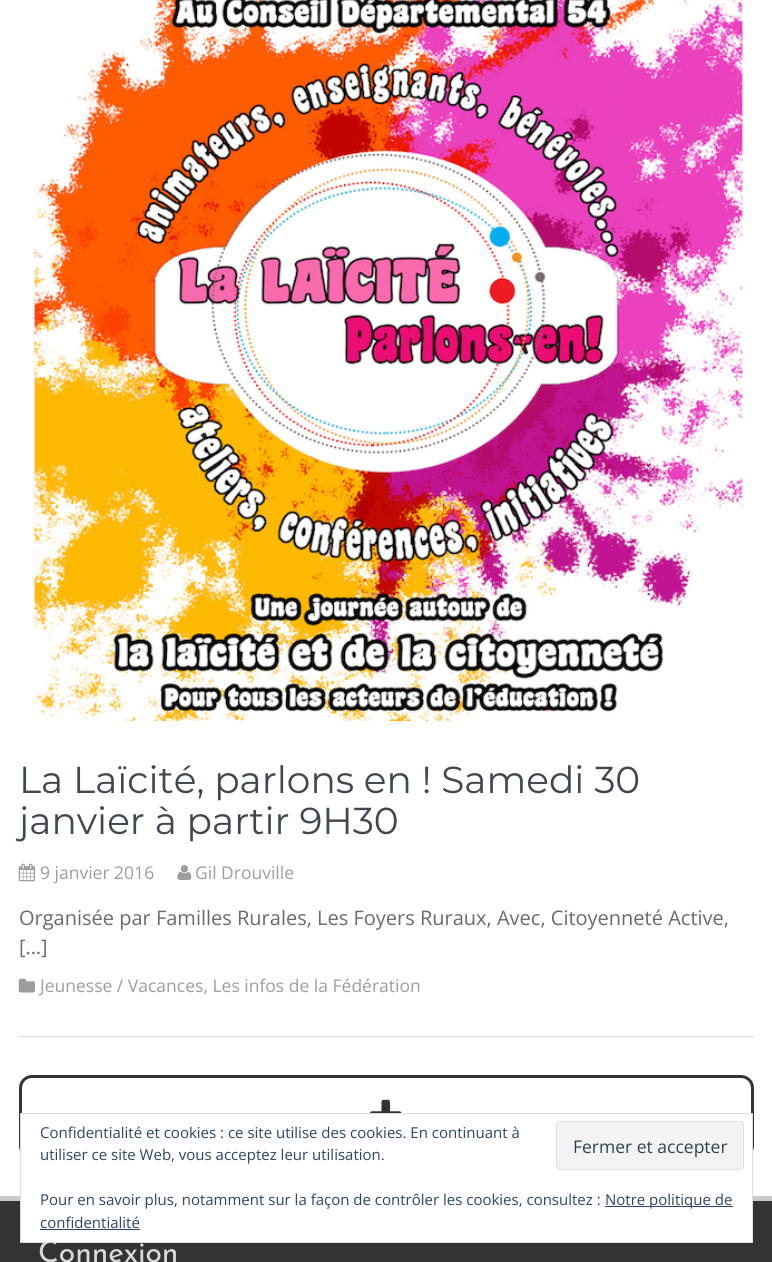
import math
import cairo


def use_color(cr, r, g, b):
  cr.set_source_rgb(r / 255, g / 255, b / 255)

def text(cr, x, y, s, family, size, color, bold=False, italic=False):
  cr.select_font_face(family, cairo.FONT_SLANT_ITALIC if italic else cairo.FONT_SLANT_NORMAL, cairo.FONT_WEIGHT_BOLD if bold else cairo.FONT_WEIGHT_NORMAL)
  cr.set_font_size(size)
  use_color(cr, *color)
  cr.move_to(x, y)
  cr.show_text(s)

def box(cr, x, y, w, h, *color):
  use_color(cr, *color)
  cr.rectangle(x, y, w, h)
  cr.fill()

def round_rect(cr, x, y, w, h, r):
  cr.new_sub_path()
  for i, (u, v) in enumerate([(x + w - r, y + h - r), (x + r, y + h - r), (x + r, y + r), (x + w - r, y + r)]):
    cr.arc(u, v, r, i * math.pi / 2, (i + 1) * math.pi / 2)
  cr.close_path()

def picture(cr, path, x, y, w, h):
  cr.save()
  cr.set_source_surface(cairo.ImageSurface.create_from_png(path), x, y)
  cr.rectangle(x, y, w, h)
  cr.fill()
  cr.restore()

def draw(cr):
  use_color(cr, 255, 255, 255)
  cr.paint()
  box(cr, 0, 1196, 772, 5, 198, 203, 208)
  box(cr, 19, 1036, 735, 1, 219, 219, 219)
  picture(cr, "img_01.png", 33, 0, 710, 721)
  picture(cr, "img_02.png", 18, 863, 17, 19)
  picture(cr, "img_03.png", 177, 865, 15, 15)
  picture(cr, "img_04.png", 18, 978, 17, 15)
  round_rect(cr, 20.5, 1076.5, 732, 81, 11.5)
  use_color(cr, 51, 51, 51)
  cr.set_line_width(3)
  cr.stroke()
  picture(cr, "img_05.png", 370, 1099, 32, 14)
  box(cr, 0, 1201, 772, 61, 51, 51, 51)
  text(cr, 19, 793, "La Laïcité, parlons en ! Samedi 30", "Montserrat Thin", 37.5, (65, 71, 79))
  text(cr, 19, 834, "janvier à partir 9H30", "Montserrat Thin", 37.5, (65, 71, 79))
  text(cr, 40, 879, "9 janvier 2016", "Open Sans", 17.5, (154, 158, 161))
  text(cr, 195, 879, "Gil Drouville", "Open Sans", 17.5, (154, 158, 161))
  text(cr, 19, 925, "Organisée par Familles Rurales, Les Foyers Ruraux, Avec, Citoyenneté Active,", "Open Sans", 20, (102, 107, 113))
  text(cr, 19, 954, "[…]", "Open Sans", 20, (102, 107, 113))
  text(cr, 40, 992, "Jeunesse / Vacances, Les infos de la Fédération", "Open Sans", 17.5, (154, 158, 161))
  text(cr, 38, 1262, "Connexion", "Josefin Sans Thin", 30, (218, 218, 218))
  use_color(cr, 255, 255, 255)
  cr.rectangle(20.5, 1113.5, 732, 129)
  cr.fill_preserve()
  use_color(cr, 222, 222, 222)
  cr.set_line_width(1)
  cr.stroke()
  text(cr, 40, 1138, "Confidentialité et cookies : ce site utilise des cookies. En continuant à", "Open Sans", 15, (46, 68, 103))
  text(cr, 40, 1160, "utiliser ce site Web, vous acceptez leur utilisation.", "Open Sans", 15, (46, 68, 103))
  use_color(cr, 243, 243, 243)
  round_rect(cr, 556.5, 1121.5, 187, 48, 3.5)
  cr.fill_preserve()
  use_color(cr, 222, 222, 222)
  cr.stroke()
  text(cr, 573, 1153, "Fermer et accepter", "Open Sans", 17.5, (46, 68, 83))
  text(cr, 40, 1205, "Pour en savoir plus, notamment sur la façon de contrôler les cookies, consultez :", "Open Sans", 15, (46, 68, 103))
  box(cr, 605, 1206, 128, 1, 46, 68, 103)
  text(cr, 605, 1205, "Notre politique de", "Open Sans", 15, (46, 68, 103))
  text(cr, 40, 1228, "confidentialité", "Open Sans", 15, (46, 68, 103))
  box(cr, 40, 1229, 100, 1, 46, 68, 103)


surface = cairo.ImageSurface(cairo.FORMAT_RGB24, 772, 1262)
cr = cairo.Context(surface)
options = cairo.FontOptions()
options.set_hint_metrics(cairo.HINT_METRICS_OFF)
options.set_hint_style(cairo.HINT_STYLE_NONE)
cr.set_font_options(options)
cr.set_miter_limit(4)
draw(cr)
surface.write_to_png("out.png")
